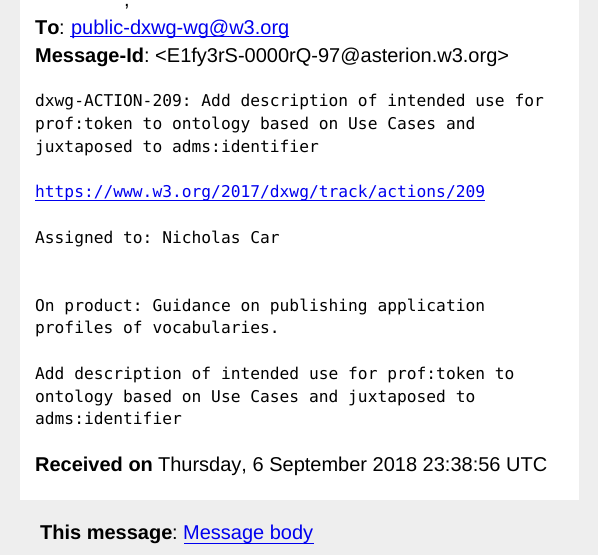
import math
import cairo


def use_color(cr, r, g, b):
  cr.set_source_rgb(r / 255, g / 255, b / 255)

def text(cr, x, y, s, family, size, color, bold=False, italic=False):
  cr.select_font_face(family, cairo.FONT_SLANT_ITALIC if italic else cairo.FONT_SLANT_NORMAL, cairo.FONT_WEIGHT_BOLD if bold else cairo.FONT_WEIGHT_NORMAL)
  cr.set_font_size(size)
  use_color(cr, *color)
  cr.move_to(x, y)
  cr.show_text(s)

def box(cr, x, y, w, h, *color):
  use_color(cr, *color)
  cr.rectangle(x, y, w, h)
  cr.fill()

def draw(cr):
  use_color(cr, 238, 238, 238)
  cr.paint()
  box(cr, 20, 0, 559, 500, 255, 255, 255)
  box(cr, 70, 36, 219, 1, 0, 0, 238)
  box(cr, 35, 200, 450, 1, 0, 0, 238)
  box(cr, 184, 543, 130, 1, 0, 0, 238)
  text(cr, 124, 6, ",", "Liberation Sans", 20, (0, 0, 0))
  text(cr, 35, 34, "To", "Liberation Sans", 20, (0, 0, 0), bold=True)
  text(cr, 59, 34, ":", "Liberation Sans", 20, (0, 0, 0))
  text(cr, 71, 34, "public-dxwg-wg@w3.org", "Liberation Sans", 20, (0, 0, 238))
  text(cr, 35, 62, "Message-Id", "Liberation Sans", 20, (0, 0, 0), bold=True)
  text(cr, 144, 62, ": <E1fy3rS-0000rQ-97@asterion.w3.org>", "Liberation Sans", 20, (0, 0, 0))
  text(cr, 35, 106, "dxwg-ACTION-209: Add description of intended use for", "DejaVu Sans Mono", 16.25, (0, 0, 0))
  text(cr, 35, 129, "prof:token to ontology based on Use Cases and", "DejaVu Sans Mono", 16.25, (0, 0, 0))
  text(cr, 35, 152, "juxtaposed to adms:identifier", "DejaVu Sans Mono", 16.25, (0, 0, 0))
  text(cr, 35, 197, "https://www.w3.org/2017/dxwg/track/actions/209", "DejaVu Sans Mono", 16.25, (0, 0, 238))
  text(cr, 35, 243, "Assigned to: Nicholas Car", "DejaVu Sans Mono", 16.25, (0, 0, 0))
  text(cr, 35, 311, "On product: Guidance on publishing application", "DejaVu Sans Mono", 16.25, (0, 0, 0))
  text(cr, 35, 333, "profiles of vocabularies.", "DejaVu Sans Mono", 16.25, (0, 0, 0))
  text(cr, 35, 379, "Add description of intended use for prof:token to", "DejaVu Sans Mono", 16.25, (0, 0, 0))
  text(cr, 35, 402, "ontology based on Use Cases and juxtaposed to", "DejaVu Sans Mono", 16.25, (0, 0, 0))
  text(cr, 35, 424, "adms:identifier", "DejaVu Sans Mono", 16.25, (0, 0, 0))
  text(cr, 35, 471, "Received on", "Liberation Sans", 20, (0, 0, 0), bold=True)
  text(cr, 158, 471, "Thursday, 6 September 2018 23:38:56 UTC", "Liberation Sans", 20, (0, 0, 0))
  text(cr, 40, 539, "This message", "Liberation Sans", 20, (0, 0, 0), bold=True)
  text(cr, 172, 539, ":", "Liberation Sans", 20, (0, 0, 0))
  text(cr, 183, 539, "Message body", "Liberation Sans", 20, (0, 0, 238))


surface = cairo.ImageSurface(cairo.FORMAT_RGB24, 598, 555)
cr = cairo.Context(surface)
options = cairo.FontOptions()
options.set_hint_metrics(cairo.HINT_METRICS_OFF)
options.set_hint_style(cairo.HINT_STYLE_NONE)
cr.set_font_options(options)
cr.set_miter_limit(4)
draw(cr)
surface.write_to_png("out.png")
